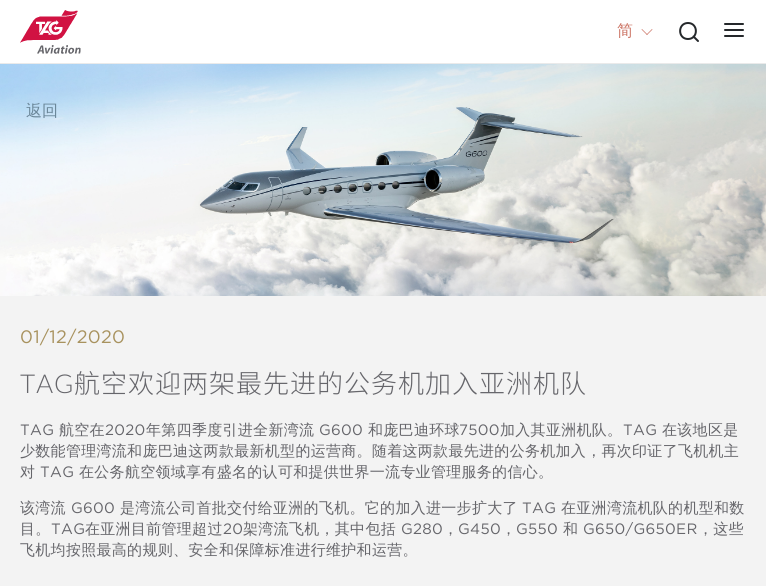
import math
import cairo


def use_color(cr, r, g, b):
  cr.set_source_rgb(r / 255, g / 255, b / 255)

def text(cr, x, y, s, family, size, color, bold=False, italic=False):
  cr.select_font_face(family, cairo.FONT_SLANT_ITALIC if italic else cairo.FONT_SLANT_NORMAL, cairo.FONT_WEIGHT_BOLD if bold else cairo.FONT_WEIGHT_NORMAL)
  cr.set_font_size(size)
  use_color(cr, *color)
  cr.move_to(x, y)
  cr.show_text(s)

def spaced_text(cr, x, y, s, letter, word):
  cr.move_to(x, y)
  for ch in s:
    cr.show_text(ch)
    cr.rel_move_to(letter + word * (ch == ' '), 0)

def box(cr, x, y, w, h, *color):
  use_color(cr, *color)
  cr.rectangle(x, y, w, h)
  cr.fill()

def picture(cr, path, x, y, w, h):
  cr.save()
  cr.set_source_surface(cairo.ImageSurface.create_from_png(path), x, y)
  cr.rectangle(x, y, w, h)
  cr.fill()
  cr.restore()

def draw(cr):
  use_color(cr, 255, 255, 255)
  cr.paint()
  box(cr, 0, 63, 766, 1, 234, 234, 234)
  picture(cr, "img_01.png", 20, 10, 61, 44)
  use_color(cr, 204, 117, 102)
  cr.new_path()
  cr.move_to(646.5, 34.5)
  cr.line_to(652, 29)
  cr.line_to(652.5, 29.5)
  cr.line_to(647, 35)
  cr.close_path()
  cr.fill()
  cr.new_path()
  cr.move_to(641.5, 29.5)
  cr.line_to(642, 29)
  cr.line_to(647.5, 34.5)
  cr.line_to(647, 35)
  cr.close_path()
  cr.fill()
  cr.new_path()
  cr.move_to(688, 39)
  cr.curve_to(698.5, 39, 698.5, 23, 688, 23)
  cr.curve_to(677.5, 23, 677.5, 39, 688, 39)
  cr.close_path()
  cr.move_to(698, 41)
  cr.line_to(693.5, 36.5)
  use_color(cr, 37, 40, 43)
  cr.set_line_cap(cairo.LINE_CAP_ROUND)
  cr.set_line_join(cairo.LINE_JOIN_ROUND)
  cr.stroke()
  cr.new_path()
  cr.move_to(725, 30)
  cr.line_to(743, 30)
  cr.move_to(725, 24)
  cr.line_to(743, 24)
  cr.move_to(725, 36)
  cr.line_to(743, 36)
  cr.stroke()
  picture(cr, "img_02.png", 0, 64, 766, 232)
  box(cr, 0, 296, 766, 290, 243, 243, 243)
  text(cr, 617, 36, "简", "WenQuanYi Zen Hei Medium", 16, (204, 117, 102))
  text(cr, 26, 116, "返回", "WenQuanYi Zen Hei Medium", 16, (107, 135, 153))
  cr.select_font_face("Gotham")
  cr.set_font_size(18)
  use_color(cr, 168, 146, 94)
  spaced_text(cr, 20, 343, "01/12/2020", 0.3, 0)
  cr.select_font_face("Lato Light")
  cr.set_font_size(26)
  use_color(cr, 102, 102, 107)
  spaced_text(cr, 20, 393, "TAG", 1, 0)
  cr.select_font_face("Noto Sans SC Thin")
  spaced_text(cr, 74, 393, "航空欢迎两架最先进的公务机加入亚洲机队", 1, 0)
  cr.select_font_face("Gotham")
  cr.set_font_size(15)
  spaced_text(cr, 20, 435, "TAG", 0.3, 0)
  cr.select_font_face("WenQuanYi Zen Hei Medium")
  spaced_text(cr, 59, 435, "航空在", 0.3, 0)
  cr.select_font_face("Gotham")
  spaced_text(cr, 105, 435, "2020", 0.3, 0)
  cr.select_font_face("WenQuanYi Zen Hei Medium")
  spaced_text(cr, 146, 435, "年第四季度引进全新湾流", 0.3, 0)
  cr.select_font_face("Gotham")
  spaced_text(cr, 319, 435, "G600", 0.3, 0)
  cr.select_font_face("WenQuanYi Zen Hei Medium")
  spaced_text(cr, 368, 435, "和庞巴迪环球", 0.3, 0)
  cr.select_font_face("Gotham")
  spaced_text(cr, 459, 435, "7500", 0.3, 0)
  cr.select_font_face("WenQuanYi Zen Hei Medium")
  spaced_text(cr, 500, 435, "加入其亚洲机队。", 0.3, 0)
  cr.select_font_face("Gotham")
  spaced_text(cr, 623, 435, "TAG", 0.3, 0)
  cr.select_font_face("WenQuanYi Zen Hei Medium")
  spaced_text(cr, 662, 435, "在该地区是", 0.3, 0)
  spaced_text(cr, 20, 456, "少数能管理湾流和庞巴迪这两款最新机型的运营商。随着这两款最先进的公务机加入，再次印证了飞机机主", 0.3, 0)
  spaced_text(cr, 20, 477, "对", 0.3, 0)
  cr.select_font_face("Gotham")
  spaced_text(cr, 40, 477, "TAG", 0.3, 0)
  cr.select_font_face("WenQuanYi Zen Hei Medium")
  spaced_text(cr, 79, 477, "在公务航空领域享有盛名的认可和提供世界一流专业管理服务的信心。", 0.3, 0)
  spaced_text(cr, 20, 513, "该湾流", 0.3, 0)
  cr.select_font_face("Gotham")
  spaced_text(cr, 71, 513, "G600", 0.3, 0)
  cr.select_font_face("WenQuanYi Zen Hei Medium")
  spaced_text(cr, 120, 513, "是湾流公司首批交付给亚洲的飞机。它的加入进一步扩大了", 0.3, 0)
  cr.select_font_face("Gotham")
  spaced_text(cr, 522, 513, "TAG", 0.3, 0)
  cr.select_font_face("WenQuanYi Zen Hei Medium")
  spaced_text(cr, 561, 513, "在亚洲湾流机队的机型和数", 0.3, 0)
  spaced_text(cr, 20, 534, "目。", 0.3, 0)
  cr.select_font_face("Gotham")
  spaced_text(cr, 51, 534, "TAG", 0.3, 0)
  cr.select_font_face("WenQuanYi Zen Hei Medium")
  spaced_text(cr, 85, 534, "在亚洲目前管理超过", 0.3, 0)
  cr.select_font_face("Gotham")
  spaced_text(cr, 223, 534, "20", 0.3, 0)
  cr.select_font_face("WenQuanYi Zen Hei Medium")
  spaced_text(cr, 243, 534, "架湾流飞机，其中包括", 0.3, 0)
  cr.select_font_face("Gotham")
  spaced_text(cr, 401, 534, "G280", 0.3, 0)
  cr.select_font_face("WenQuanYi Zen Hei Medium")
  spaced_text(cr, 443, 534, "，", 0.3, 0)
  cr.select_font_face("Gotham")
  spaced_text(cr, 458, 534, "G450", 0.3, 0)
  cr.select_font_face("WenQuanYi Zen Hei Medium")
  spaced_text(cr, 501, 534, "，", 0.3, 0)
  cr.select_font_face("Gotham")
  spaced_text(cr, 516, 534, "G550", 0.3, 0)
  cr.select_font_face("WenQuanYi Zen Hei Medium")
  spaced_text(cr, 563, 534, "和", 0.3, 0)
  cr.select_font_face("Gotham")
  spaced_text(cr, 583, 534, "G650/G650ER", 0.3, 0)
  cr.select_font_face("WenQuanYi Zen Hei Medium")
  spaced_text(cr, 698, 534, "，这些", 0.3, 0)
  spaced_text(cr, 20, 555, "飞机均按照最高的规则、安全和保障标准进行维护和运营。", 0.3, 0)


surface = cairo.ImageSurface(cairo.FORMAT_RGB24, 766, 586)
cr = cairo.Context(surface)
options = cairo.FontOptions()
options.set_hint_metrics(cairo.HINT_METRICS_OFF)
options.set_hint_style(cairo.HINT_STYLE_NONE)
cr.set_font_options(options)
cr.set_miter_limit(4)
draw(cr)
surface.write_to_png("out.png")
